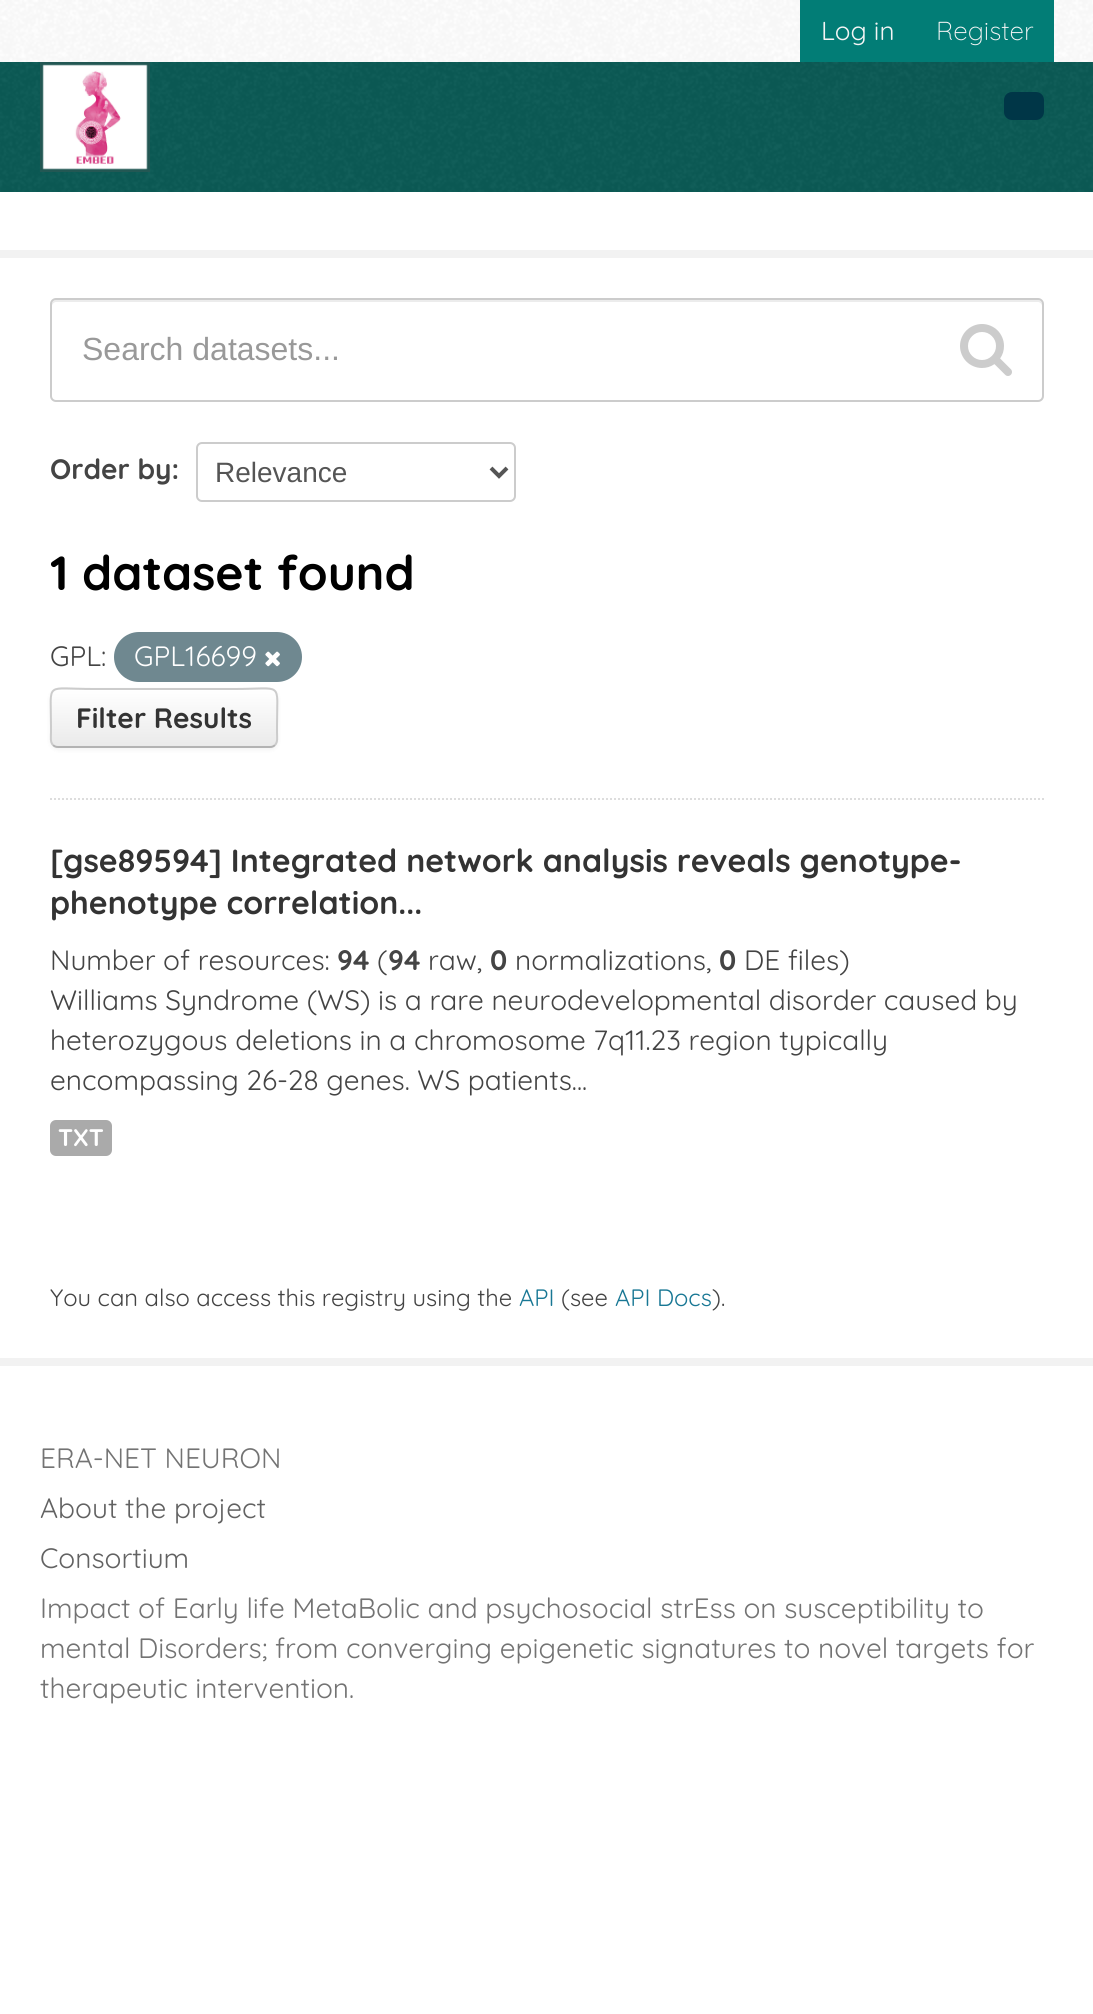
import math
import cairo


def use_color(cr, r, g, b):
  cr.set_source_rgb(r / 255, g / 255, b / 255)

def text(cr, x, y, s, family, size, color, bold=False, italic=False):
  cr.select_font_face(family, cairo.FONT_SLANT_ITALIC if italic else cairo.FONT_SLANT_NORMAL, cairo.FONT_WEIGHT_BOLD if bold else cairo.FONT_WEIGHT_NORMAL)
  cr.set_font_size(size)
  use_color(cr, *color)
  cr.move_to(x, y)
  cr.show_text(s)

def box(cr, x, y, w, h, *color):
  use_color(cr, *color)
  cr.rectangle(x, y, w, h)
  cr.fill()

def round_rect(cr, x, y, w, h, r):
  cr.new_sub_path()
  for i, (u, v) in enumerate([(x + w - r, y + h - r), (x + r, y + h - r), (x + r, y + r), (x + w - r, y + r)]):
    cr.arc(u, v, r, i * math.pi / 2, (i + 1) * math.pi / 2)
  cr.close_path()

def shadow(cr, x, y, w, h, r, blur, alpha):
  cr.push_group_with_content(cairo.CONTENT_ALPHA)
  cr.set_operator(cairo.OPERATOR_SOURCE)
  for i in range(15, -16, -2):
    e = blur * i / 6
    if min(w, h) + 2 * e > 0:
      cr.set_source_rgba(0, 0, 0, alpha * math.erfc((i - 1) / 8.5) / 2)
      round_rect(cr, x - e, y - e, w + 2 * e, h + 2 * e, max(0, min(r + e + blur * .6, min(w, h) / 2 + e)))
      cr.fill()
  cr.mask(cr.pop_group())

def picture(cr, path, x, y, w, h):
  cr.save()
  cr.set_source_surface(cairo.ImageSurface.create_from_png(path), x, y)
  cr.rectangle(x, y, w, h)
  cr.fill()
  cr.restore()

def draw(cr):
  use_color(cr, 255, 255, 255)
  cr.paint()
  picture(cr, "img_01.png", 0, 0, 1093, 62)
  box(cr, 800, 0, 254, 62, 2, 125, 118)
  box(cr, 0, 62, 1093, 130, 11, 91, 86)
  picture(cr, "img_02.png", 0, 62, 1093, 130)
  picture(cr, "img_03.png", 40, 62, 110, 110)
  use_color(cr, 0, 54, 71)
  round_rect(cr, 1004, 92, 40, 28, 8)
  cr.fill()
  cr.rectangle(-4, 254, 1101, 1108)
  use_color(cr, 242, 242, 242)
  cr.set_line_width(8)
  cr.stroke()
  cr.new_path()
  cr.move_to(50, 799)
  cr.line_to(1044, 799)
  use_color(cr, 221, 221, 221)
  cr.set_line_width(2)
  cr.set_dash([2, 2])
  cr.stroke()
  use_color(cr, 236, 236, 236)
  cr.new_path()
  cr.move_to(56, 302)
  cr.line_to(1038, 302)
  cr.curve_to(1040, 302, 1042, 304, 1042, 306)
  cr.line_to(1042, 304)
  cr.curve_to(1042, 302, 1040, 300, 1038, 300)
  cr.line_to(56, 300)
  cr.curve_to(54, 300, 52, 302, 52, 304)
  cr.line_to(52, 306)
  cr.curve_to(52, 304, 54, 302, 56, 302)
  cr.close_path()
  cr.fill()
  round_rect(cr, 51, 299, 992, 102, 5)
  use_color(cr, 204, 204, 204)
  cr.set_dash([])
  cr.stroke()
  picture(cr, "img_04.png", 960, 324, 52, 52)
  round_rect(cr, 197, 443, 318, 58, 5)
  cr.stroke()
  cr.new_path()
  cr.move_to(491, 468)
  cr.line_to(499, 476)
  cr.line_to(507, 468)
  use_color(cr, 85, 85, 85)
  cr.set_line_width(4)
  cr.stroke()
  use_color(cr, 111, 136, 144)
  round_rect(cr, 114, 632, 188, 50, 25)
  cr.fill()
  picture(cr, "img_05.png", 265, 651, 15, 16)
  use_color(cr, 0, 0, 0)
  shadow(cr, 50, 690, 228, 60, 8, 2, 0.05)
  use_color(cr, 247, 247, 247)
  round_rect(cr, 50, 688, 228, 60, 8)
  cr.fill()
  cr.save()
  round_rect(cr, 50, 688, 228, 60, 8)
  cr.clip()
  gradient = cairo.LinearGradient(164, 690, 164, 746)
  gradient.add_color_stop_rgba(0, 1, 1, 1, 1)
  gradient.add_color_stop_rgba(1, 0.918, 0.918, 0.918, 1)
  cr.set_source(gradient)
  cr.rectangle(50, 690, 228, 56)
  cr.fill()
  cr.restore()
  cr.new_path()
  cr.move_to(275, 745)
  cr.curve_to(273.5, 746.5, 272, 747, 270, 747)
  cr.line_to(58, 747)
  cr.curve_to(56, 747, 54.5, 746.5, 53, 745)
  use_color(cr, 179, 179, 179)
  cr.set_line_width(2)
  cr.stroke()
  cr.new_path()
  cr.move_to(53, 745)
  cr.curve_to(50, 742, 51, 736.5, 51, 732.5)
  cr.line_to(51, 725.5)
  cr.curve_to(51, 680.5, 44, 689, 93.5, 689)
  cr.line_to(234.5, 689)
  cr.curve_to(284, 689, 277, 680.5, 277, 725.5)
  cr.line_to(277, 732.5)
  cr.curve_to(277, 736.5, 278, 742, 275, 745)
  use_color(cr, 204, 204, 204)
  cr.stroke()
  use_color(cr, 170, 170, 170)
  round_rect(cr, 50, 1120, 62, 36, 6)
  cr.fill()
  text(cr, 821, 40, "Log in", "Quicksand", 26, (245, 245, 245))
  text(cr, 936, 40, "Register", "Quicksand Light", 26, (245, 245, 245))
  text(cr, 82, 360, "Search datasets...", "Liberation Sans", 32, (153, 153, 153))
  text(cr, 50, 479, "Order by:", "Quicksand", 28, (68, 68, 68), bold=True)
  text(cr, 215, 482, "Relevance", "Liberation Sans", 28, (85, 85, 85))
  text(cr, 50, 590, "1 dataset found", "Quicksand", 48, (0, 0, 0), bold=True)
  text(cr, 50, 666, "GPL:", "Quicksand", 28, (68, 68, 68))
  text(cr, 134, 666, "GPL16699", "Quicksand", 28, (255, 255, 255))
  text(cr, 76, 728, "Filter Results", "Quicksand", 28, (51, 51, 51), bold=True)
  text(cr, 50, 872, "[gse89594] Integrated network analysis reveals genotype-", "Quicksand", 32, (51, 51, 51), bold=True)
  text(cr, 50, 914, "phenotype correlation...", "Quicksand", 32, (51, 51, 51), bold=True)
  text(cr, 50, 970, "Number of resources:", "Quicksand", 28, (68, 68, 68))
  text(cr, 337, 970, "94", "Quicksand", 28, (68, 68, 68), bold=True)
  text(cr, 377, 970, "(", "Quicksand", 28, (68, 68, 68))
  text(cr, 388, 970, "94", "Quicksand", 28, (68, 68, 68), bold=True)
  text(cr, 428, 970, "raw,", "Quicksand", 28, (68, 68, 68))
  text(cr, 490, 970, "0", "Quicksand", 28, (68, 68, 68), bold=True)
  text(cr, 515, 970, "normalizations,", "Quicksand", 28, (68, 68, 68))
  text(cr, 719, 970, "0", "Quicksand", 28, (68, 68, 68), bold=True)
  text(cr, 744, 970, "DE files)", "Quicksand", 28, (68, 68, 68))
  text(cr, 50, 1010, "Williams Syndrome (WS) is a rare neurodevelopmental disorder caused by", "Quicksand", 28, (68, 68, 68))
  text(cr, 50, 1050, "heterozygous deletions in a chromosome 7q11.23 region typically", "Quicksand", 28, (68, 68, 68))
  text(cr, 50, 1090, "encompassing 26-28 genes. WS patients...", "Quicksand", 28, (68, 68, 68))
  text(cr, 58, 1146, "TXT", "Quicksand", 24, (255, 255, 255), bold=True)
  text(cr, 50, 1306, "You can also access this registry using the", "Quicksand", 23.75, (68, 68, 68))
  text(cr, 519, 1306, "API", "Quicksand", 23.75, (24, 119, 148))
  text(cr, 561, 1306, "(see", "Quicksand", 23.75, (68, 68, 68))
  text(cr, 615, 1306, "API Docs", "Quicksand", 23.75, (24, 119, 148))
  text(cr, 712, 1306, ").", "Quicksand", 23.75, (68, 68, 68))
  text(cr, 40, 1468, "ERA-NET NEURON", "Quicksand", 28, (115, 115, 115))
  text(cr, 40, 1518, "About the project", "Quicksand", 28, (98, 98, 98))
  text(cr, 40, 1568, "Consortium", "Quicksand", 28, (98, 98, 98))
  text(cr, 40, 1618, "Impact of Early life MetaBolic and psychosocial strEss on susceptibility to", "Quicksand", 28, (115, 115, 115))
  text(cr, 40, 1658, "mental Disorders; from converging epigenetic signatures to novel targets for", "Quicksand", 28, (115, 115, 115))
  text(cr, 40, 1698, "therapeutic intervention.", "Quicksand", 28, (115, 115, 115))


surface = cairo.ImageSurface(cairo.FORMAT_RGB24, 1093, 2014)
cr = cairo.Context(surface)
options = cairo.FontOptions()
options.set_hint_metrics(cairo.HINT_METRICS_OFF)
options.set_hint_style(cairo.HINT_STYLE_NONE)
cr.set_font_options(options)
cr.set_miter_limit(4)
draw(cr)
surface.write_to_png("out.png")
